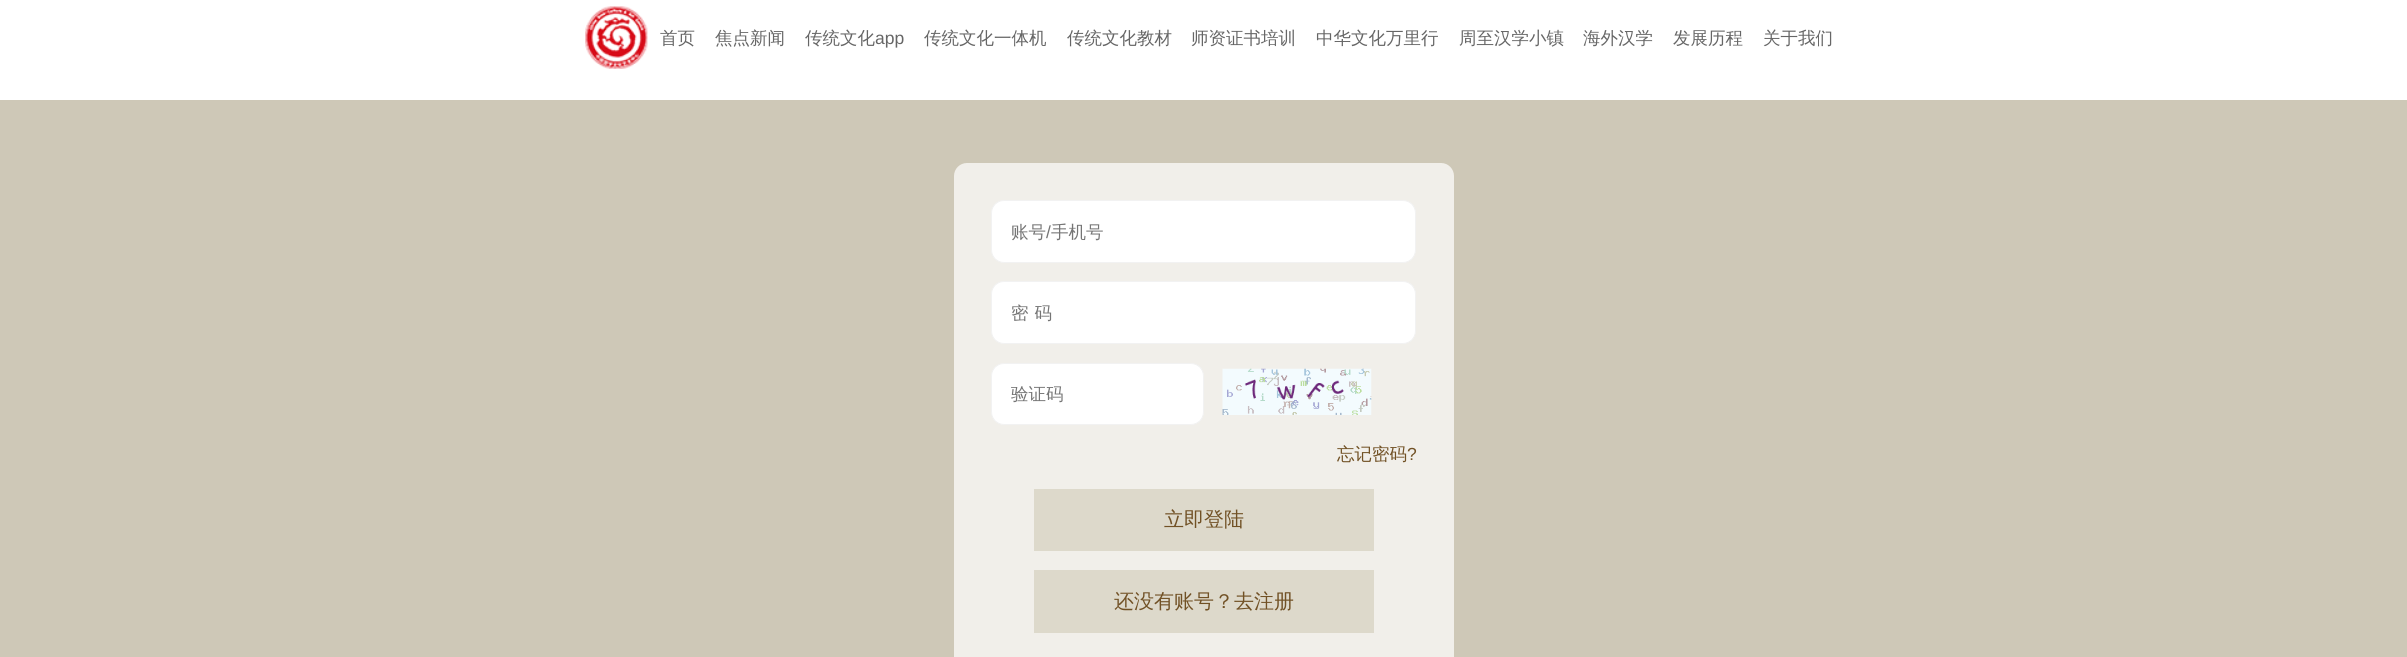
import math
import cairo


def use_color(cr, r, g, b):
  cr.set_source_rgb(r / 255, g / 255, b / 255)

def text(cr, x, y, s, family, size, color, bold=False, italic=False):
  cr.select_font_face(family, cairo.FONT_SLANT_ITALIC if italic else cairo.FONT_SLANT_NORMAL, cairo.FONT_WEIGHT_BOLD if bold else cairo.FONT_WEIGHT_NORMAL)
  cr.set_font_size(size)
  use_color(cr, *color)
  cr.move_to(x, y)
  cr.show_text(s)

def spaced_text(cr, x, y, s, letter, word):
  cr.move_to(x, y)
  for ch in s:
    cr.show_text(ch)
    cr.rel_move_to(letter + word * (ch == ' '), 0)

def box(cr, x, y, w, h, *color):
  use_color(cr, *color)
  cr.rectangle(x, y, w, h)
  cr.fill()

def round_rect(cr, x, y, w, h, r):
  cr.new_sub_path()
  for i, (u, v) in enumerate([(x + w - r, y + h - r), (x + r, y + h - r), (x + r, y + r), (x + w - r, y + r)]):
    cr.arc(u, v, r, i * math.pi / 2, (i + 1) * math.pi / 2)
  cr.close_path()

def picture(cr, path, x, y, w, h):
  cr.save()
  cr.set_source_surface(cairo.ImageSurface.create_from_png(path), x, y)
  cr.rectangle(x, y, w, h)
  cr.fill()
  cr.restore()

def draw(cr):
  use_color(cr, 255, 255, 255)
  cr.paint()
  picture(cr, "img_01.png", 585, 6, 63, 63)
  box(cr, 0, 100, 2407, 557, 206, 200, 183)
  use_color(cr, 241, 239, 234)
  round_rect(cr, 954, 163, 500, 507, 13)
  cr.fill()
  use_color(cr, 255, 255, 255)
  round_rect(cr, 991.5, 200.5, 424, 62, 12.5)
  cr.fill_preserve()
  use_color(cr, 242, 242, 242)
  cr.set_line_width(1)
  cr.stroke()
  use_color(cr, 255, 255, 255)
  round_rect(cr, 991.5, 281.5, 424, 62, 12.5)
  cr.fill_preserve()
  use_color(cr, 242, 242, 242)
  cr.stroke()
  use_color(cr, 255, 255, 255)
  round_rect(cr, 991.5, 363.5, 212, 61, 12.5)
  cr.fill_preserve()
  use_color(cr, 242, 242, 242)
  cr.stroke()
  picture(cr, "img_02.png", 1222, 368, 150, 47)
  box(cr, 1034, 489, 340, 62, 221, 217, 203)
  box(cr, 1034, 570, 340, 63, 221, 217, 203)
  text(cr, 660, 44, "首页", "WenQuanYi Zen Hei Medium", 17.5, (102, 102, 102))
  text(cr, 715, 44, "焦点新闻", "WenQuanYi Zen Hei Medium", 17.5, (102, 102, 102))
  text(cr, 805, 44, "传统文化", "WenQuanYi Zen Hei Medium", 17.5, (102, 102, 102))
  text(cr, 875, 44, "app", "Liberation Sans", 17.5, (102, 102, 102))
  text(cr, 924, 44, "传统文化一体机", "WenQuanYi Zen Hei Medium", 17.5, (102, 102, 102))
  text(cr, 1067, 44, "传统文化教材", "WenQuanYi Zen Hei Medium", 17.5, (102, 102, 102))
  text(cr, 1191, 44, "师资证书培训", "WenQuanYi Zen Hei Medium", 17.5, (102, 102, 102))
  text(cr, 1316, 44, "中华文化万里行", "WenQuanYi Zen Hei Medium", 17.5, (102, 102, 102))
  text(cr, 1459, 44, "周至汉学小镇", "WenQuanYi Zen Hei Medium", 17.5, (102, 102, 102))
  text(cr, 1583, 44, "海外汉学", "WenQuanYi Zen Hei Medium", 17.5, (102, 102, 102))
  text(cr, 1673, 44, "发展历程", "WenQuanYi Zen Hei Medium", 17.5, (102, 102, 102))
  text(cr, 1763, 44, "关于我们", "WenQuanYi Zen Hei Medium", 17.5, (102, 102, 102))
  text(cr, 1011, 238, "账号", "WenQuanYi Zen Hei Medium", 17.5, (117, 117, 117))
  text(cr, 1046, 238, "/", "Liberation Sans", 17.5, (117, 117, 117))
  text(cr, 1051, 238, "手机号", "WenQuanYi Zen Hei Medium", 17.5, (117, 117, 117))
  spaced_text(cr, 1011, 319, "密码", 6, 0)
  text(cr, 1011, 400, "验证码", "WenQuanYi Zen Hei Medium", 17.5, (117, 117, 117))
  text(cr, 1337, 460, "忘记密码", "WenQuanYi Zen Hei Medium", 17.5, (113, 81, 37))
  text(cr, 1407, 460, "?", "Liberation Sans", 17.5, (113, 81, 37))
  text(cr, 1164, 526, "立即登陆", "WenQuanYi Zen Hei Medium", 20, (113, 81, 37))
  text(cr, 1114, 608, "还没有账号？去注册", "WenQuanYi Zen Hei Medium", 20, (113, 81, 37))


surface = cairo.ImageSurface(cairo.FORMAT_RGB24, 2407, 657)
cr = cairo.Context(surface)
options = cairo.FontOptions()
options.set_hint_metrics(cairo.HINT_METRICS_OFF)
options.set_hint_style(cairo.HINT_STYLE_NONE)
cr.set_font_options(options)
cr.set_miter_limit(4)
draw(cr)
surface.write_to_png("out.png")
